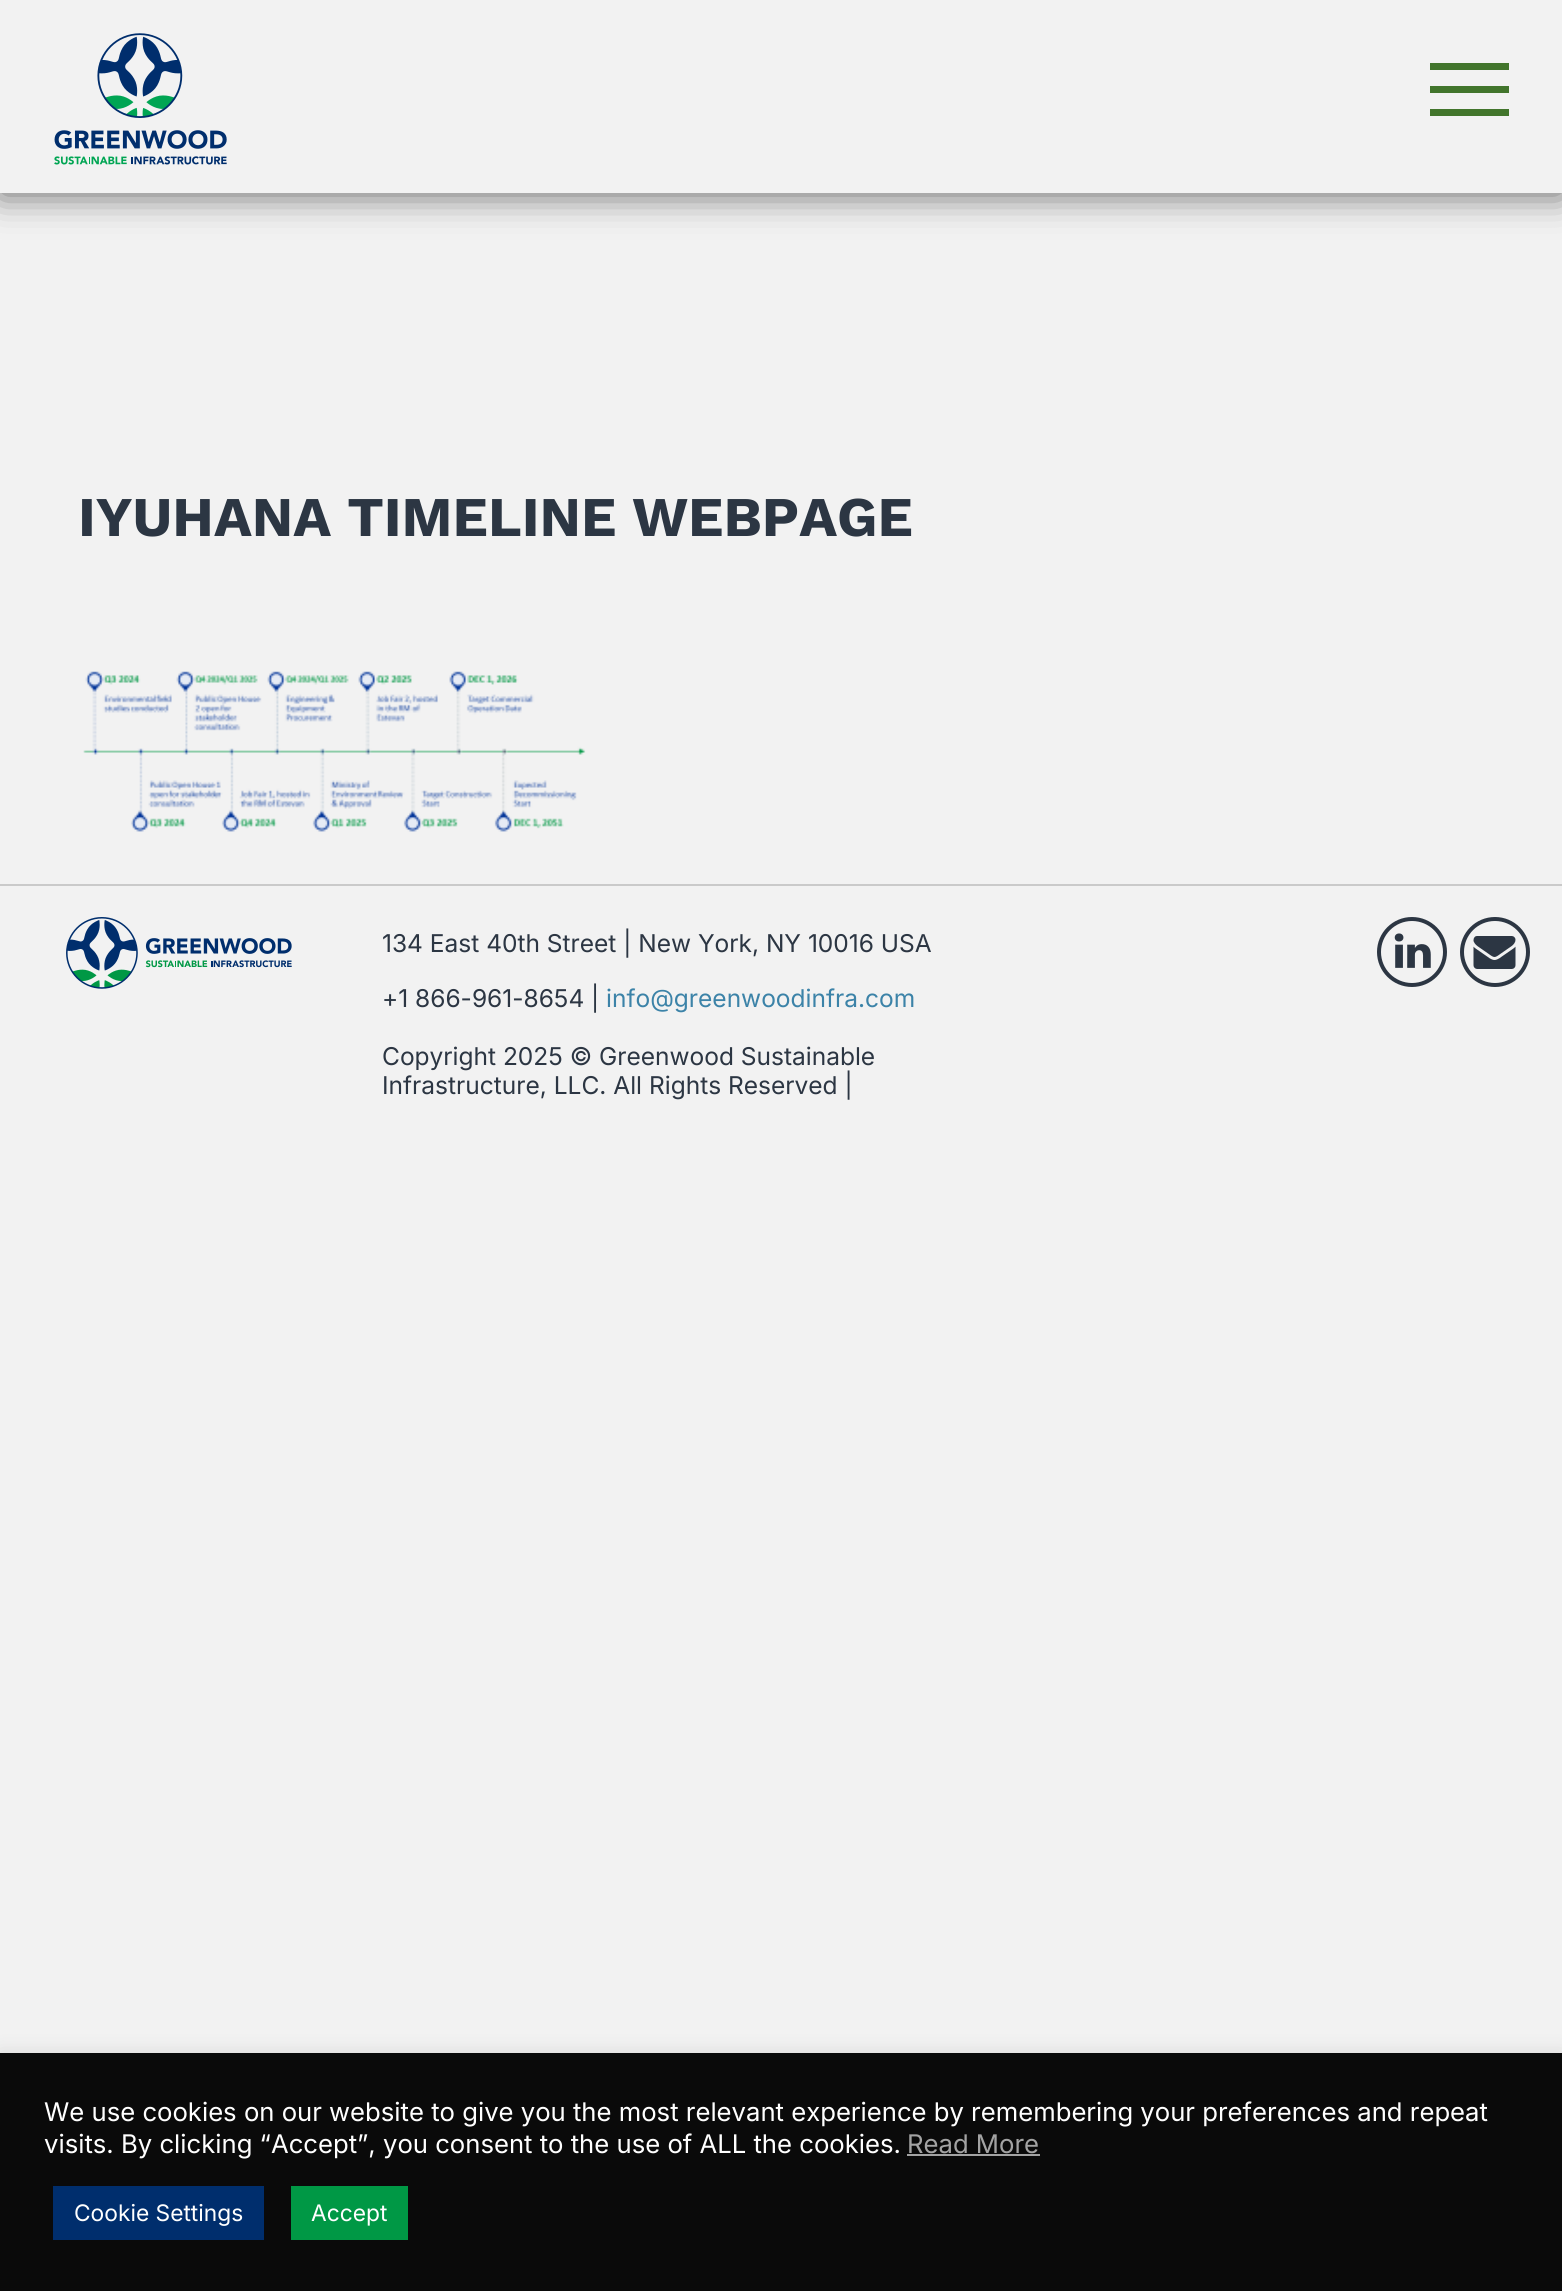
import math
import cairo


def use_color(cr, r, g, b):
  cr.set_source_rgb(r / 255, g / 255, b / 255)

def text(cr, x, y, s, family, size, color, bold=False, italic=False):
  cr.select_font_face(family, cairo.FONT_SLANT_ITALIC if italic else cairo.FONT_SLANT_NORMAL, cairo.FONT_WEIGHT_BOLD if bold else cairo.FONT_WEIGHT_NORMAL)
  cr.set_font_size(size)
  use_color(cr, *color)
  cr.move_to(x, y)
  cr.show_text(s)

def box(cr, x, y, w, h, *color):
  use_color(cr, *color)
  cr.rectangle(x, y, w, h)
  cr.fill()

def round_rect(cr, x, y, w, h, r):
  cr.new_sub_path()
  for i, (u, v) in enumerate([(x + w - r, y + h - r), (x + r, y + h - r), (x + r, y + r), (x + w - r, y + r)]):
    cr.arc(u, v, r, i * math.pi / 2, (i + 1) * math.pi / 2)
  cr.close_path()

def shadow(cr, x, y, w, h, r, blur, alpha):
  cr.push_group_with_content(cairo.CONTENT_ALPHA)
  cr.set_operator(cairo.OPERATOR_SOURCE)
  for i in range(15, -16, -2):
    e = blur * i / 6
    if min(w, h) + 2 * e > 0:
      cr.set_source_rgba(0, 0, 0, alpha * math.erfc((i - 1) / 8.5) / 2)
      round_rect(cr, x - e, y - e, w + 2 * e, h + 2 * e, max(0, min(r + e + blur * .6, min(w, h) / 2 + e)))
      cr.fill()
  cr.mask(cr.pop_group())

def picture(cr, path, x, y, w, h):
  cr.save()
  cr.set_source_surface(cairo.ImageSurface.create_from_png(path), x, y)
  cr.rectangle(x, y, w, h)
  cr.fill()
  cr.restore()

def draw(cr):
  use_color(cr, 242, 242, 242)
  cr.paint()
  use_color(cr, 0, 0, 0)
  shadow(cr, 0, 2, 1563, 192, 0, 18.5, 0.6)
  box(cr, 0, 0, 1562, 193, 242, 242, 242)
  picture(cr, "img_01.png", 54, 33, 173, 132)
  box(cr, 1430, 63, 79, 7, 66, 117, 44)
  box(cr, 1430, 86, 79, 7, 66, 117, 44)
  box(cr, 1430, 109, 79, 7, 66, 117, 44)
  picture(cr, "img_02.png", 83, 671, 503, 161)
  box(cr, 0, 884, 1562, 2, 202, 202, 202)
  picture(cr, "img_03.png", 66, 917, 226, 72)
  cr.arc(1412, 952, 33, 0, 2 * math.pi)
  use_color(cr, 44, 54, 67)
  cr.set_line_width(4)
  cr.stroke()
  picture(cr, "img_04.png", 1394, 933, 37, 35)
  cr.arc(1495, 952, 33, 0, 2 * math.pi)
  cr.stroke()
  picture(cr, "img_05.png", 1473, 936, 43, 33)
  use_color(cr, 172, 171, 171)
  shadow(cr, 0, 2051, 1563, 240, 0, 9, 0.3)
  box(cr, 0, 2053, 1562, 238, 10, 10, 10)
  box(cr, 907, 2154, 133, 2, 163, 163, 163)
  box(cr, 53, 2186, 211, 54, 0, 46, 109)
  box(cr, 291, 2186, 117, 54, 0, 152, 69)
  text(cr, 78, 536, "IYUHANA TIMELINE WEBPAGE", "Work Sans", 56, (44, 54, 67), bold=True)
  text(cr, 382, 952, "134 East 40th Street | New York, NY 10016 USA", "Inter", 24.5, (44, 54, 67))
  text(cr, 382, 1007, "+1 866-961-8654 |", "Inter", 24.5, (44, 54, 67))
  text(cr, 606, 1007, "info@greenwoodinfra.com", "Inter", 24.5, (60, 131, 168))
  text(cr, 382, 1065, "Copyright 2025 © Greenwood Sustainable", "Inter", 24.5, (44, 54, 67))
  text(cr, 382, 1094, "Infrastructure, LLC. All Rights Reserved |", "Inter", 24.5, (44, 54, 67))
  text(cr, 44, 2121, "We use cookies on our website to give you the most relevant experience by remembering your preferences and repeat", "Inter", 25.67, (255, 255, 255))
  text(cr, 44, 2153, "visits. By clicking “Accept”, you consent to the use of ALL the cookies.", "Inter", 25.67, (255, 255, 255))
  text(cr, 907, 2153, "Read More", "Inter", 25.67, (163, 163, 163))
  text(cr, 74, 2221, "Cookie Settings", "Inter", 22.75, (255, 255, 255))
  text(cr, 311, 2221, "Accept", "Inter", 22.75, (255, 255, 255))


surface = cairo.ImageSurface(cairo.FORMAT_RGB24, 1562, 2291)
cr = cairo.Context(surface)
options = cairo.FontOptions()
options.set_hint_metrics(cairo.HINT_METRICS_OFF)
options.set_hint_style(cairo.HINT_STYLE_NONE)
cr.set_font_options(options)
cr.set_miter_limit(4)
draw(cr)
surface.write_to_png("out.png")
